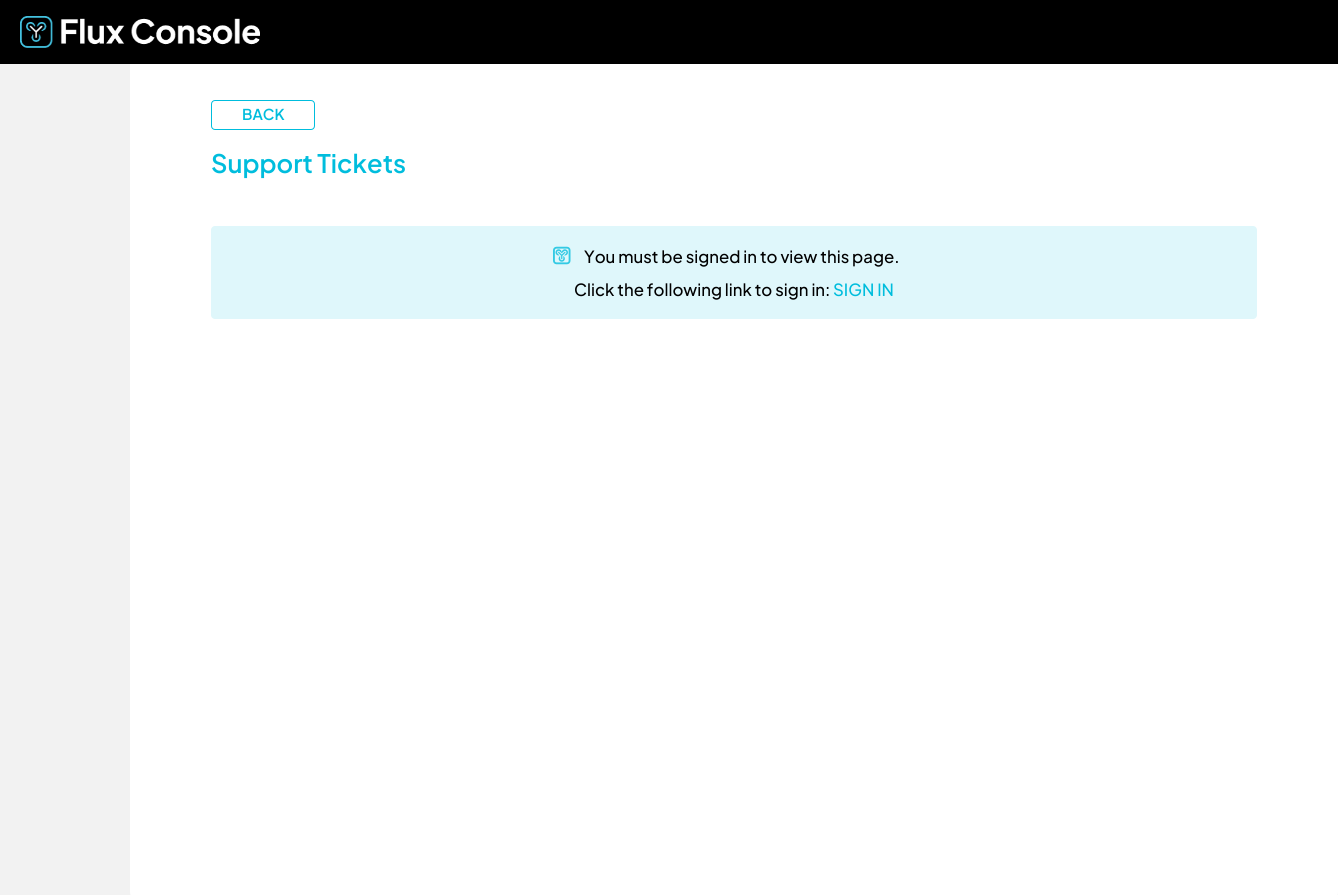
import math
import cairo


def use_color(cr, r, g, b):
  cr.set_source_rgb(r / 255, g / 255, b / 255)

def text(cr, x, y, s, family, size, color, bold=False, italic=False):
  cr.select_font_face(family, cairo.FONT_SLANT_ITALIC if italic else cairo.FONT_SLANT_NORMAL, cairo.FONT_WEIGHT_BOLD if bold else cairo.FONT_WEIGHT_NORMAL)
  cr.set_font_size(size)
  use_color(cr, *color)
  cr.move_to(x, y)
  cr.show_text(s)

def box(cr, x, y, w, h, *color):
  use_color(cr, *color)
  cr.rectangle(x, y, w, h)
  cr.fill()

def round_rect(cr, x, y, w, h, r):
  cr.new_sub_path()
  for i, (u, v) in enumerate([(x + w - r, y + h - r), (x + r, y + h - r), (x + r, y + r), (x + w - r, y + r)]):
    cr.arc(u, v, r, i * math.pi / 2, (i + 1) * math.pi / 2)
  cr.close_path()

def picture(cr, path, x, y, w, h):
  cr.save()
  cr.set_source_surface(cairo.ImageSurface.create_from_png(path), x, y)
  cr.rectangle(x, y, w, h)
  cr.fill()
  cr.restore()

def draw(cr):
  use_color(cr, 242, 242, 242)
  cr.paint()
  use_color(cr, 255, 255, 255)
  cr.new_path()
  cr.move_to(130, 0)
  cr.line_to(1338, 0)
  cr.line_to(1338, 892)
  cr.curve_to(1338, 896.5, 1334.5, 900, 1330, 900)
  cr.line_to(138, 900)
  cr.curve_to(133.5, 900, 130, 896.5, 130, 892)
  cr.close_path()
  cr.fill()
  box(cr, 0, 0, 1338, 64, 0, 0, 0)
  picture(cr, "img_01.png", 20, 16, 240, 32)
  round_rect(cr, 211.5, 100.5, 103, 29, 3.5)
  use_color(cr, 0, 189, 221)
  cr.set_line_width(1)
  cr.stroke()
  use_color(cr, 223, 247, 251)
  round_rect(cr, 211, 226, 1046, 93, 4)
  cr.fill()
  picture(cr, "img_02.png", 553, 246, 18, 19)
  text(cr, 242, 120, "BACK", "Plus Jakarta Sans SemiBold", 15, (0, 189, 221))
  text(cr, 211, 173, "Support Tickets", "Plus Jakarta Sans SemiBold", 25.5, (0, 189, 221))
  text(cr, 584, 263, "You must be signed in to view this page.", "Plus Jakarta Sans Medium", 16.75, (0, 0, 0))
  text(cr, 574, 296, "Click the following link to sign in:", "Plus Jakarta Sans Medium", 16.75, (0, 0, 0))
  text(cr, 833, 296, "SIGN IN", "Plus Jakarta Sans Medium", 16.75, (0, 189, 221))


surface = cairo.ImageSurface(cairo.FORMAT_RGB24, 1338, 895)
cr = cairo.Context(surface)
options = cairo.FontOptions()
options.set_hint_metrics(cairo.HINT_METRICS_OFF)
options.set_hint_style(cairo.HINT_STYLE_NONE)
cr.set_font_options(options)
cr.set_miter_limit(4)
draw(cr)
surface.write_to_png("out.png")
